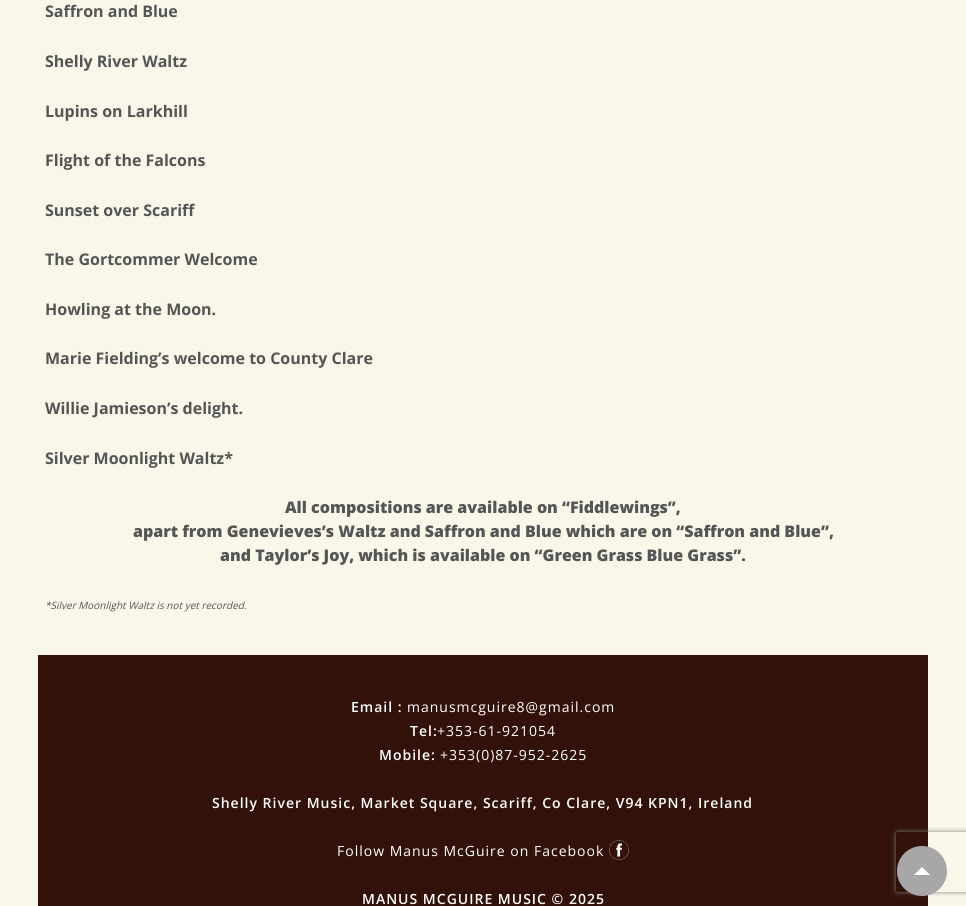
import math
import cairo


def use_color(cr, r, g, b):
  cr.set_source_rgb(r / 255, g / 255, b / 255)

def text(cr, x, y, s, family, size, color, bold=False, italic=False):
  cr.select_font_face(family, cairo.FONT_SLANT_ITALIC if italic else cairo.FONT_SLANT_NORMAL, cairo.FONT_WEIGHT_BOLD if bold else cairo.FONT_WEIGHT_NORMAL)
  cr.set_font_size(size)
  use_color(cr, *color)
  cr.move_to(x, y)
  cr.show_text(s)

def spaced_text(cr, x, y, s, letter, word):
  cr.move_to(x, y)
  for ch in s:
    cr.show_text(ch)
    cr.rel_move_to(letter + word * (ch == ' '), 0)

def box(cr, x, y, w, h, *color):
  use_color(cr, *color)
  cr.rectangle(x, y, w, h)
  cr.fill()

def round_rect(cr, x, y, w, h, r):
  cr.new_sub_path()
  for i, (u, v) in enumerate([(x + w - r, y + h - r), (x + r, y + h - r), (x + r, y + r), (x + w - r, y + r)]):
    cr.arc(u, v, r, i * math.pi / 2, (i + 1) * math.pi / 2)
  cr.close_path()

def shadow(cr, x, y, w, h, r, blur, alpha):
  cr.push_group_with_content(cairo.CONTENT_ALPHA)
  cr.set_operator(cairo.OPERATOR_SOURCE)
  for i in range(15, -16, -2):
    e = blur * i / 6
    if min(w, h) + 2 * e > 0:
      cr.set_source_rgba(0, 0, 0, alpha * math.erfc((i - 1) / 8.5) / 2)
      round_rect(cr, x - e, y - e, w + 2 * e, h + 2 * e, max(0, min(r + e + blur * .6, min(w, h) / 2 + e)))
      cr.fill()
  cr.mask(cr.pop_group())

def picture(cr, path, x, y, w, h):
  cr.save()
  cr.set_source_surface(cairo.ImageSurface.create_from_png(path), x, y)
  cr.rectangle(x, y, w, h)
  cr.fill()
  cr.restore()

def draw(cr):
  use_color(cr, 249, 246, 234)
  cr.paint()
  box(cr, 38, 655, 890, 251, 50, 17, 9)
  picture(cr, "img_01.png", 609, 840, 20, 20)
  cr.save()
  cr.set_fill_rule(cairo.FILL_RULE_EVEN_ODD)
  cr.new_path()
  cr.move_to(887, 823)
  cr.line_to(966, 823)
  cr.line_to(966, 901)
  cr.line_to(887, 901)
  cr.close_path()
  cr.move_to(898, 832)
  cr.line_to(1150, 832)
  cr.curve_to(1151, 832, 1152, 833, 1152, 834)
  cr.line_to(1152, 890)
  cr.curve_to(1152, 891, 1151, 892, 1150, 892)
  cr.line_to(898, 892)
  cr.curve_to(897, 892, 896, 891, 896, 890)
  cr.line_to(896, 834)
  cr.curve_to(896, 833, 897, 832, 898, 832)
  cr.close_path()
  cr.clip()
  use_color(cr, 128, 128, 128)
  shadow(cr, 896, 832, 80, 60, 2, 2.5, 1)
  cr.restore()
  use_color(cr, 168, 166, 166)
  cr.arc(922, 871, 25, 0, 2 * math.pi)
  cr.fill()
  use_color(cr, 255, 255, 255)
  cr.new_path()
  cr.move_to(930, 875)
  cr.line_to(914, 875)
  cr.line_to(922, 867)
  cr.close_path()
  cr.fill()
  text(cr, 45, 17, "Saffron and Blue", "Open Sans", 16, (85, 85, 85), bold=True)
  text(cr, 45, 67, "Shelly River Waltz", "Open Sans", 16, (85, 85, 85), bold=True)
  text(cr, 45, 117, "Lupins on Larkhill", "Open Sans", 16, (85, 85, 85), bold=True)
  text(cr, 45, 166, "Flight of the Falcons", "Open Sans", 16, (85, 85, 85), bold=True)
  text(cr, 45, 216, "Sunset over Scariff", "Open Sans", 16, (85, 85, 85), bold=True)
  text(cr, 45, 265, "The Gortcommer Welcome", "Open Sans", 16, (85, 85, 85), bold=True)
  text(cr, 45, 315, "Howling at the Moon.", "Open Sans", 16, (85, 85, 85), bold=True)
  text(cr, 45, 364, "Marie Fielding’s welcome to County Clare", "Open Sans", 16, (85, 85, 85), bold=True)
  text(cr, 45, 414, "Willie Jamieson’s delight.", "Open Sans", 16, (85, 85, 85), bold=True)
  text(cr, 45, 464, "Silver Moonlight Waltz*", "Open Sans", 16, (85, 85, 85), bold=True)
  text(cr, 285, 513, "All compositions are available on “Fiddlewings”,", "Open Sans ExtraBold", 16, (85, 85, 85))
  text(cr, 133, 537, "apart from Genevieves’s Waltz and Saffron and Blue which are on “Saffron and Blue”,", "Open Sans ExtraBold", 16, (85, 85, 85))
  text(cr, 220, 561, "and Taylor’s Joy, which is available on “Green Grass Blue Grass”.", "Open Sans ExtraBold", 16, (85, 85, 85))
  text(cr, 45, 609, "*Silver Moonlight Waltz is not yet recorded.", "Open Sans", 10, (85, 85, 85), italic=True)
  cr.select_font_face("Open Sans SemiBold")
  cr.set_font_size(14)
  use_color(cr, 255, 255, 255)
  spaced_text(cr, 351, 712, "Email :", 1, 0)
  cr.select_font_face("Open Sans")
  spaced_text(cr, 407, 712, "manusmcguire8@gmail.com", 1, 0)
  cr.select_font_face("Open Sans SemiBold")
  spaced_text(cr, 410, 736, "Tel:", 1, 0)
  cr.select_font_face("Open Sans")
  spaced_text(cr, 437, 736, "+353-61-921054", 1, 0)
  cr.select_font_face("Open Sans SemiBold")
  spaced_text(cr, 379, 760, "Mobile:", 1, 0)
  cr.select_font_face("Open Sans")
  spaced_text(cr, 440, 760, "+353(0)87-952-2625", 1, 0)
  cr.select_font_face("Open Sans SemiBold")
  spaced_text(cr, 212, 808, "Shelly River Music, Market Square, Scariff, Co Clare, V94 KPN1, Ireland", 1, 0)
  cr.select_font_face("Open Sans")
  spaced_text(cr, 337, 856, "Follow Manus McGuire on Facebook", 1, 0)
  cr.select_font_face("Open Sans SemiBold")
  spaced_text(cr, 362, 904, "MANUS MCGUIRE MUSIC © 2025", 1, 0)


surface = cairo.ImageSurface(cairo.FORMAT_RGB24, 966, 906)
cr = cairo.Context(surface)
options = cairo.FontOptions()
options.set_hint_metrics(cairo.HINT_METRICS_OFF)
options.set_hint_style(cairo.HINT_STYLE_NONE)
cr.set_font_options(options)
cr.set_miter_limit(4)
draw(cr)
surface.write_to_png("out.png")
